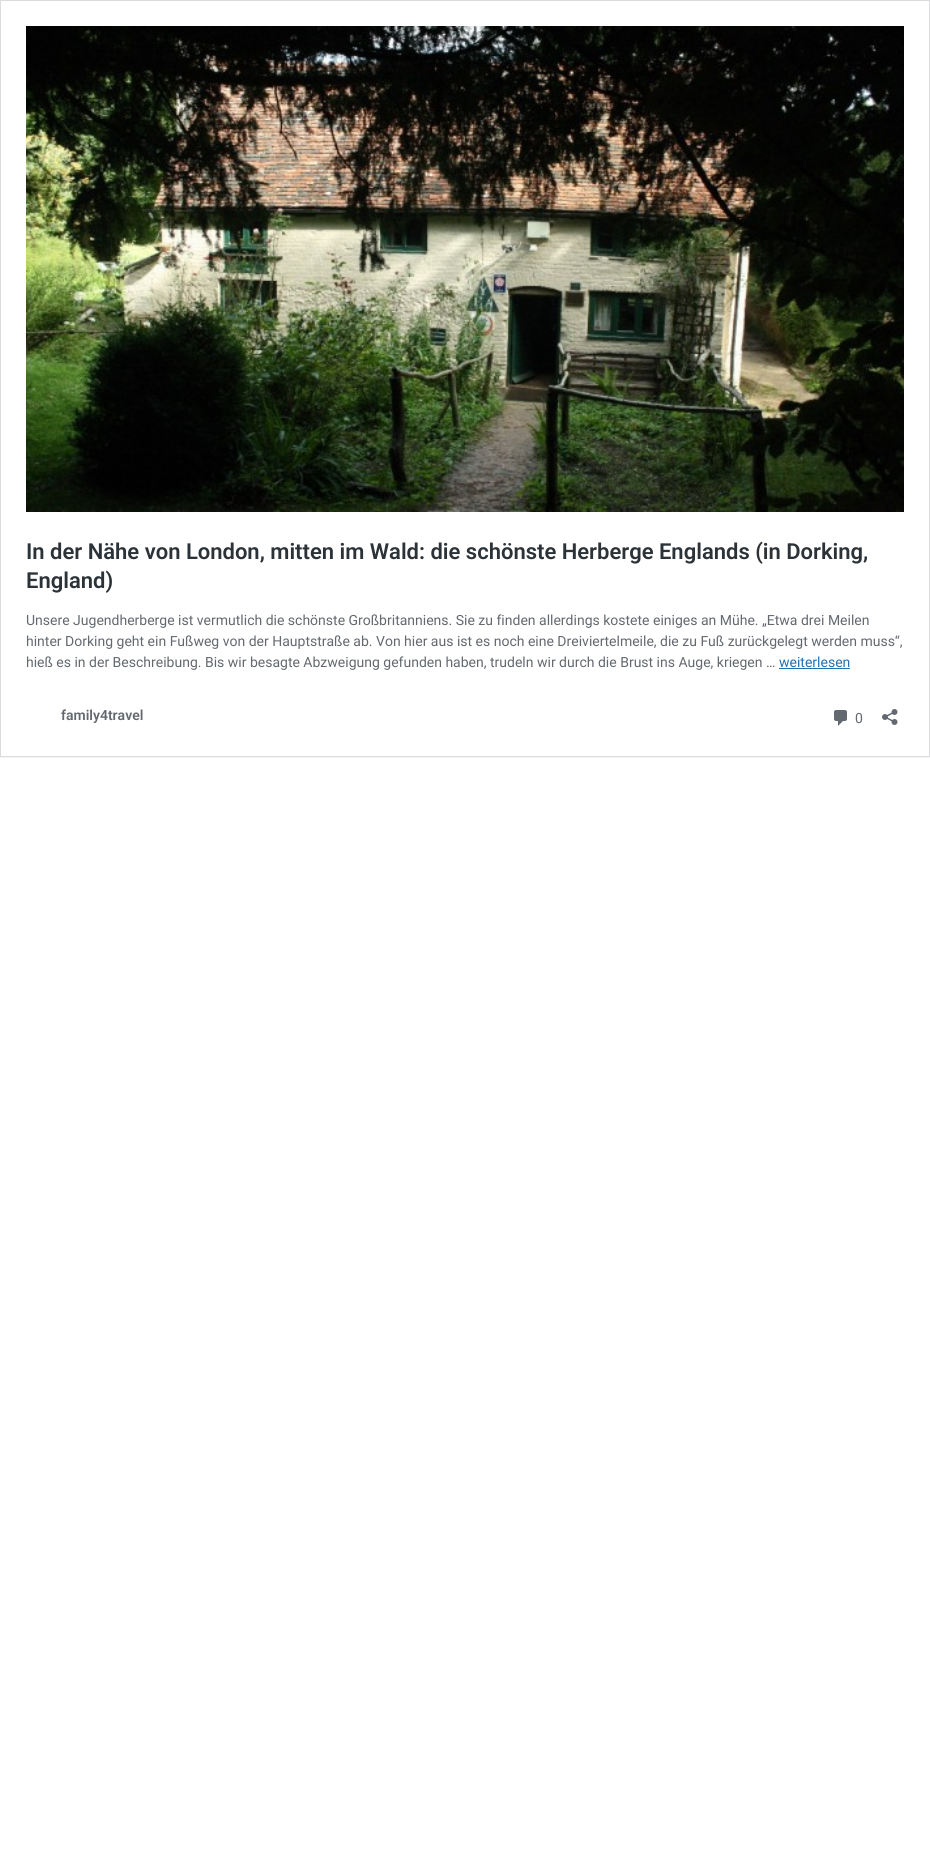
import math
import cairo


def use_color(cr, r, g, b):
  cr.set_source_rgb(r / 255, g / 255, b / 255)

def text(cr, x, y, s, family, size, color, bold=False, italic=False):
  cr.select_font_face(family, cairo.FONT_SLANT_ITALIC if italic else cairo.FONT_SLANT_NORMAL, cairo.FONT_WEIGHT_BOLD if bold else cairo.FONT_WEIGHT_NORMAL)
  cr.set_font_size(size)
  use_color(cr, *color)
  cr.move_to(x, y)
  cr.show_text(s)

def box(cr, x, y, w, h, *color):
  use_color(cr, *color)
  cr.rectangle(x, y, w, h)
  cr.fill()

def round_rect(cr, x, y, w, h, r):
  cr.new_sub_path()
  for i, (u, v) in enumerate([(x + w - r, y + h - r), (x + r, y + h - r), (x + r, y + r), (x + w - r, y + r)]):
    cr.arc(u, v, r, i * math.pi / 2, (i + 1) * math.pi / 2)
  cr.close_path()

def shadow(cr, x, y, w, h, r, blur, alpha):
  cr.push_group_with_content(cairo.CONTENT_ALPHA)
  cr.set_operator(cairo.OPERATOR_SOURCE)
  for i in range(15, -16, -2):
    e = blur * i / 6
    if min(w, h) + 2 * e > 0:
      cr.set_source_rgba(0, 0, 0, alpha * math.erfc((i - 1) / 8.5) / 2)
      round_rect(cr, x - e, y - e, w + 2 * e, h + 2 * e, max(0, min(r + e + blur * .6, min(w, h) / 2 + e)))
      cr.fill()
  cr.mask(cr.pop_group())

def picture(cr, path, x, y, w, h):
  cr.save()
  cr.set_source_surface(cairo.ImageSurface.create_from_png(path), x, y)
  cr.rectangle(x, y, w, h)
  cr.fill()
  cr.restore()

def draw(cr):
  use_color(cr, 255, 255, 255)
  cr.paint()
  cr.save()
  cr.rectangle(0, 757, 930, 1)
  cr.clip()
  use_color(cr, 0, 0, 0)
  shadow(cr, 0, 1, 930, 757, 0, 0.5, 0.05)
  cr.restore()
  cr.rectangle(0.5, 0.5, 929, 756)
  use_color(cr, 220, 220, 222)
  cr.set_line_width(1)
  cr.stroke()
  picture(cr, "img_01.png", 26, 26, 878, 486)
  box(cr, 779, 668, 71, 1, 34, 113, 177)
  picture(cr, "img_02.png", 834, 710, 13, 16)
  picture(cr, "img_03.png", 882, 709, 16, 16)
  text(cr, 26, 559, "In der Nähe von London, mitten im Wald: die schönste Herberge Englands (in Dorking,", "Roboto SemiBold", 22, (44, 51, 56))
  text(cr, 26, 588, "England)", "Roboto SemiBold", 22, (44, 51, 56))
  text(cr, 26, 625, "Unsere Jugendherberge ist vermutlich die schönste Großbritanniens. Sie zu finden allerdings kostete einiges an Mühe. „Etwa drei Meilen", "Roboto", 14, (100, 105, 112))
  text(cr, 26, 646, "hinter Dorking geht ein Fußweg von der Hauptstraße ab. Von hier aus ist es noch eine Dreiviertelmeile, die zu Fuß zurückgelegt werden muss“,", "Roboto", 14, (100, 105, 112))
  text(cr, 26, 667, "hieß es in der Beschreibung. Bis wir besagte Abzweigung gefunden haben, trudeln wir durch die Brust ins Auge, kriegen …", "Roboto", 14, (100, 105, 112))
  text(cr, 779, 667, "weiterlesen", "Roboto", 14, (34, 113, 177))
  text(cr, 61, 720, "family4travel", "Roboto SemiBold", 14, (100, 105, 112))
  text(cr, 855, 723, "0", "Roboto", 14, (100, 105, 112))


surface = cairo.ImageSurface(cairo.FORMAT_RGB24, 930, 1854)
cr = cairo.Context(surface)
options = cairo.FontOptions()
options.set_hint_metrics(cairo.HINT_METRICS_OFF)
options.set_hint_style(cairo.HINT_STYLE_NONE)
cr.set_font_options(options)
cr.set_miter_limit(4)
draw(cr)
surface.write_to_png("out.png")
